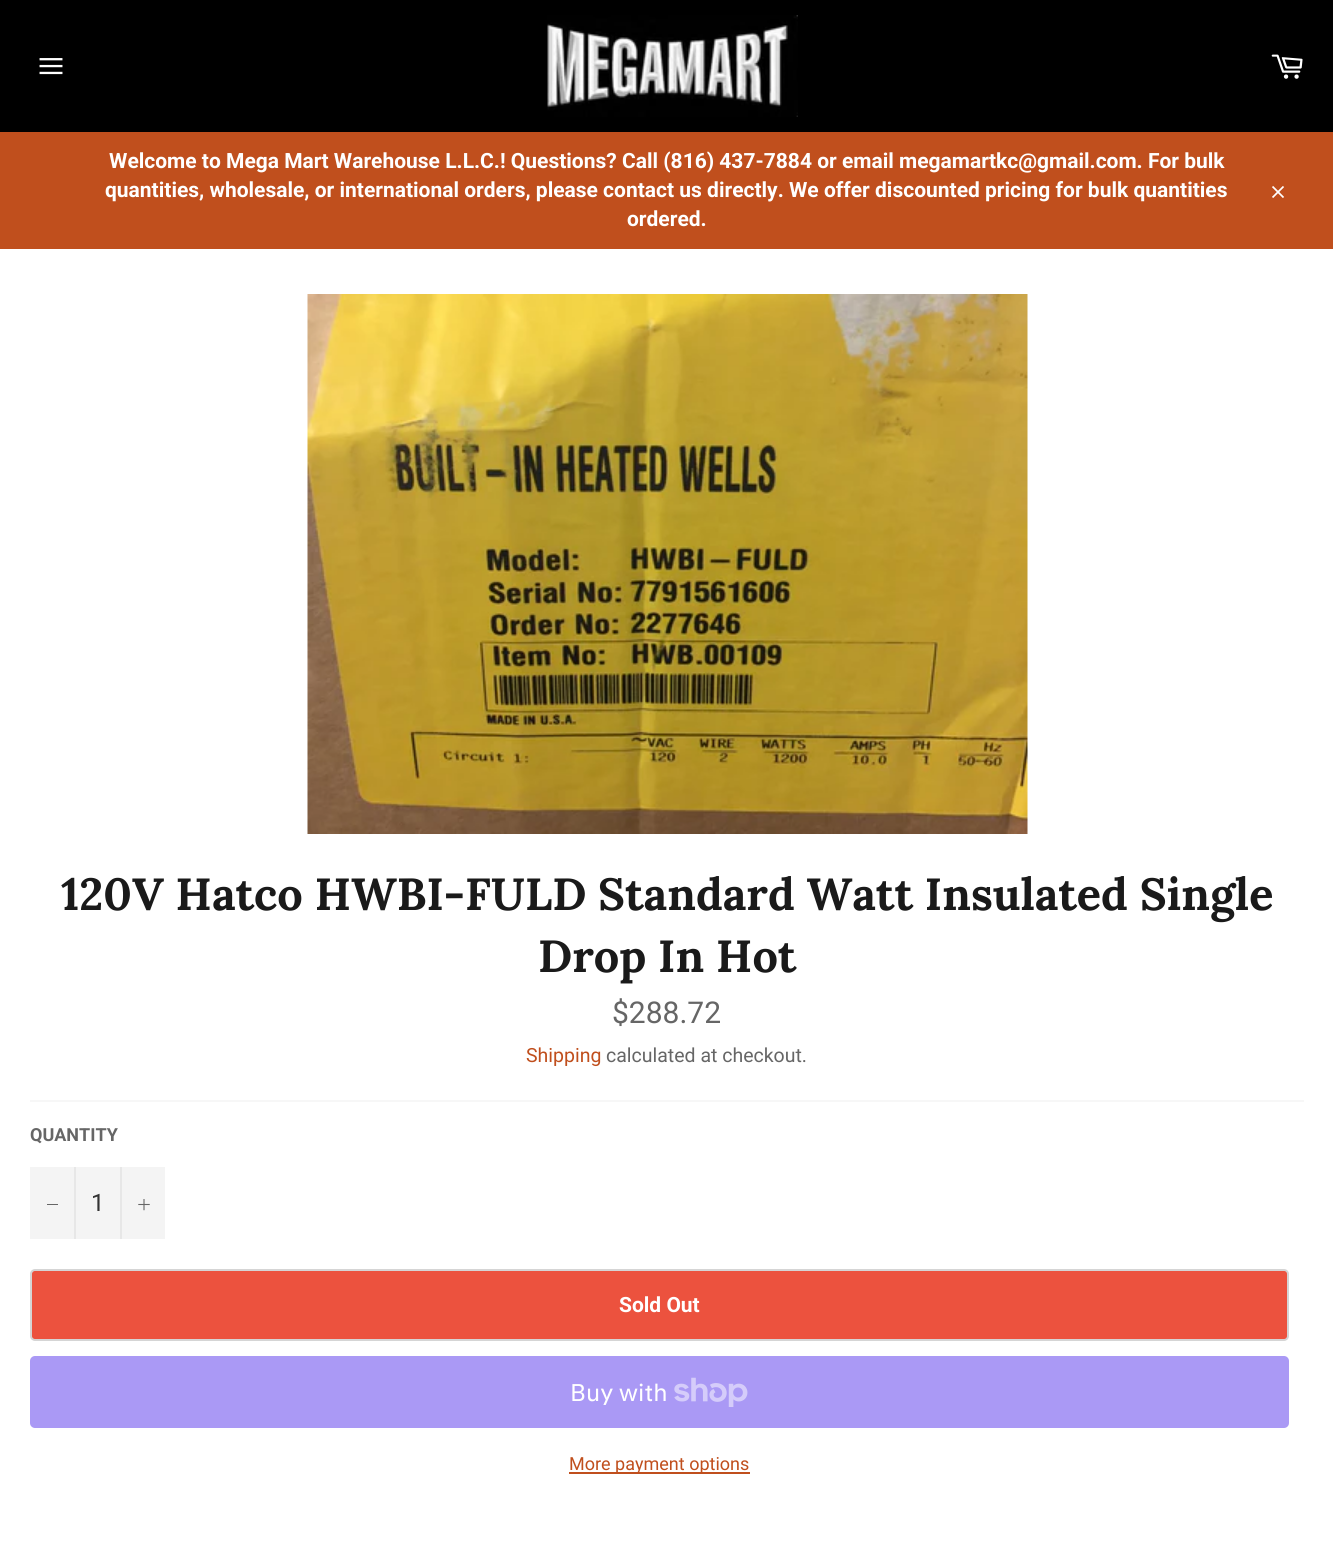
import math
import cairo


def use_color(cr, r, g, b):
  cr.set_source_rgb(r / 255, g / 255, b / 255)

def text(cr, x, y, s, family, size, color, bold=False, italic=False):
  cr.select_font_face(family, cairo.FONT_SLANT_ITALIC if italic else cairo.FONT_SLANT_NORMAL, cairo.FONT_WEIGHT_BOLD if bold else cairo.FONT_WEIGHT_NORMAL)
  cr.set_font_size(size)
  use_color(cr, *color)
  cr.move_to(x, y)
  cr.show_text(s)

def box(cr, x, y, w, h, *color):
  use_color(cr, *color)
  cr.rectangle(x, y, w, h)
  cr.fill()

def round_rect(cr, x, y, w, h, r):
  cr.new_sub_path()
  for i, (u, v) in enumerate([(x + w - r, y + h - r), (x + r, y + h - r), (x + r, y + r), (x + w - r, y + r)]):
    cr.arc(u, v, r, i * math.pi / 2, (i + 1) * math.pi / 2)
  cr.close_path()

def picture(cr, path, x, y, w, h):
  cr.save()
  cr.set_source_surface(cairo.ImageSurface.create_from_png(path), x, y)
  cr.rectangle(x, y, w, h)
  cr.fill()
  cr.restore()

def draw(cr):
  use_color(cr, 0, 0, 0)
  cr.paint()
  picture(cr, "img_01.png", 39, 58, 24, 17)
  picture(cr, "img_02.png", 547, 15, 251, 102)
  picture(cr, "img_03.png", 1271, 54, 32, 25)
  box(cr, 0, 132, 1333, 117, 192, 79, 29)
  picture(cr, "img_04.png", 1272, 186, 12, 12)
  box(cr, 0, 249, 1333, 1296, 255, 255, 255)
  picture(cr, "img_05.png", 307, 294, 721, 540)
  box(cr, 30, 1100, 1274, 2, 247, 247, 247)
  box(cr, 30, 1167, 135, 72, 244, 244, 244)
  box(cr, 74, 1167, 2, 72, 231, 231, 231)
  box(cr, 47, 1204, 11, 1, 102, 102, 102)
  box(cr, 120, 1167, 2, 72, 231, 231, 231)
  picture(cr, "img_06.png", 138, 1199, 12, 12)
  use_color(cr, 236, 82, 62)
  round_rect(cr, 31, 1270, 1257, 70, 4)
  cr.fill_preserve()
  use_color(cr, 213, 213, 213)
  cr.stroke()
  use_color(cr, 170, 153, 245)
  round_rect(cr, 30, 1356, 1259, 72, 5)
  cr.fill()
  picture(cr, "img_07.png", 674, 1377, 74, 30)
  box(cr, 569, 1472, 181, 2, 192, 79, 29)
  text(cr, 109, 168, "Welcome to Mega Mart Warehouse L.L.C.! Questions? Call (816) 437-7884 or email megamartkc@gmail.com. For bulk", "Roboto", 21, (255, 255, 255), bold=True)
  text(cr, 105, 197, "quantities, wholesale, or international orders, please contact us directly. We offer discounted pricing for bulk quantities", "Roboto", 21, (255, 255, 255), bold=True)
  text(cr, 627, 226, "ordered.", "Roboto", 21, (255, 255, 255), bold=True)
  text(cr, 61, 910, "120V Hatco HWBI-FULD Standard Watt Insulated Single", "Lora", 45, (26, 26, 26), bold=True)
  text(cr, 538, 972, "Drop In Hot", "Lora", 45, (26, 26, 26), bold=True)
  text(cr, 612, 1023, "$288.72", "Roboto", 30, (102, 102, 102))
  text(cr, 526, 1062, "Shipping", "Roboto", 19.5, (192, 79, 29))
  text(cr, 606, 1062, "calculated at checkout.", "Roboto", 19.5, (102, 102, 102))
  text(cr, 30, 1141, "QUANTITY", "Roboto", 18, (102, 102, 102), bold=True)
  text(cr, 91, 1211, "1", "Roboto", 24, (51, 51, 51))
  text(cr, 619, 1312, "Sold Out", "Roboto", 21, (255, 255, 255), bold=True)
  text(cr, 570, 1401, "Buy with", "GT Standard", 24, (255, 255, 255))
  text(cr, 569, 1470, "More payment options", "Roboto", 18, (192, 79, 29))


surface = cairo.ImageSurface(cairo.FORMAT_RGB24, 1333, 1545)
cr = cairo.Context(surface)
options = cairo.FontOptions()
options.set_hint_metrics(cairo.HINT_METRICS_OFF)
options.set_hint_style(cairo.HINT_STYLE_NONE)
cr.set_font_options(options)
cr.set_miter_limit(4)
draw(cr)
surface.write_to_png("out.png")
